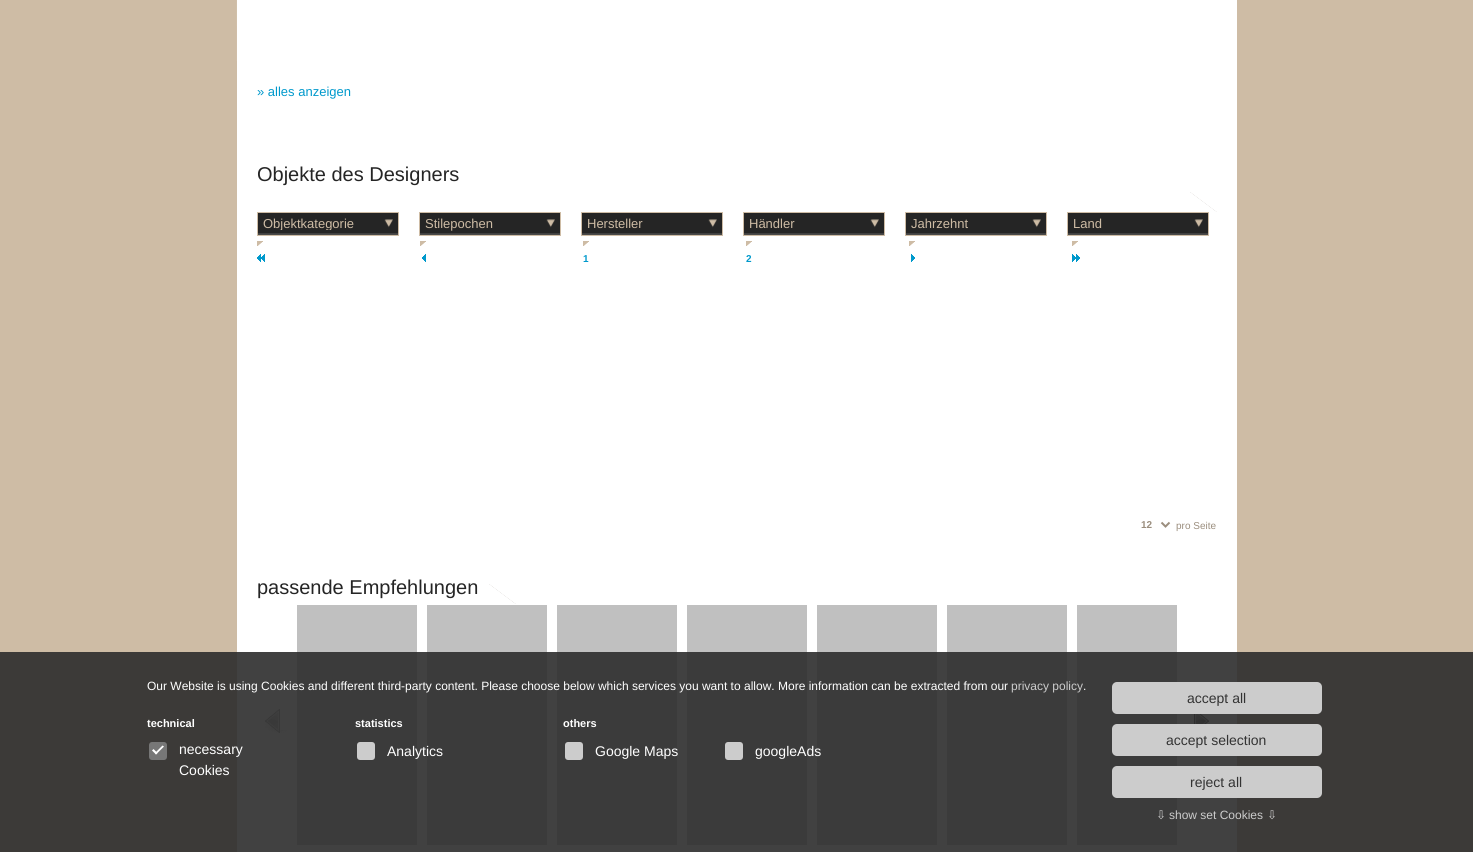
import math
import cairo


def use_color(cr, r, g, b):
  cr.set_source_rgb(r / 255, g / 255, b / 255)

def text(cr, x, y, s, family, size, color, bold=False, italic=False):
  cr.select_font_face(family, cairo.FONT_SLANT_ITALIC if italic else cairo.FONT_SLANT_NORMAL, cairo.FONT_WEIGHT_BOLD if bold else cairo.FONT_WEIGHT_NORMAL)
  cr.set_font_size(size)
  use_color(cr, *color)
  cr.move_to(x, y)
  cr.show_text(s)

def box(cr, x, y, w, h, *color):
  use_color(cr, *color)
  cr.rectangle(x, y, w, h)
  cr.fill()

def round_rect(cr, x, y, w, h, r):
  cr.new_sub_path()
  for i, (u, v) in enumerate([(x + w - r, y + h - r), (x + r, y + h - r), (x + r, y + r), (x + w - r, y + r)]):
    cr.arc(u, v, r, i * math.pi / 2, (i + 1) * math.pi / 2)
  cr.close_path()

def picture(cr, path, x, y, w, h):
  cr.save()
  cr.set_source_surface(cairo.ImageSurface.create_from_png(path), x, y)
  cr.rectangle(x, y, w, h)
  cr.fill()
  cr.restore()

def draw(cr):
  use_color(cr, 206, 188, 165)
  cr.paint()
  box(cr, 0, 652, 1473, 200, 60, 58, 56)
  picture(cr, "img_01.png", 236, 0, 1, 61)
  box(cr, 237, 0, 1000, 652, 255, 255, 255)
  box(cr, 237, 652, 1000, 200, 65, 65, 65)
  picture(cr, "img_02.png", 1190, 192, 27, 20)
  cr.rectangle(257.5, 212.5, 141, 23)
  use_color(cr, 206, 188, 165)
  cr.set_line_width(1)
  cr.stroke()
  box(cr, 258, 213, 140, 6, 37, 37, 37)
  picture(cr, "img_03.png", 258, 219, 140, 16)
  cr.rectangle(419.5, 212.5, 141, 23)
  use_color(cr, 206, 188, 165)
  cr.stroke()
  box(cr, 420, 213, 140, 6, 37, 37, 37)
  picture(cr, "img_03.png", 420, 219, 140, 16)
  cr.rectangle(581.5, 212.5, 141, 23)
  use_color(cr, 206, 188, 165)
  cr.stroke()
  box(cr, 582, 213, 140, 6, 37, 37, 37)
  picture(cr, "img_03.png", 582, 219, 140, 16)
  cr.rectangle(743.5, 212.5, 141, 23)
  use_color(cr, 206, 188, 165)
  cr.stroke()
  box(cr, 744, 213, 140, 6, 37, 37, 37)
  picture(cr, "img_03.png", 744, 219, 140, 16)
  cr.rectangle(905.5, 212.5, 141, 23)
  use_color(cr, 206, 188, 165)
  cr.stroke()
  box(cr, 906, 213, 140, 6, 37, 37, 37)
  picture(cr, "img_03.png", 906, 219, 140, 16)
  cr.rectangle(1067.5, 212.5, 141, 23)
  use_color(cr, 206, 188, 165)
  cr.stroke()
  box(cr, 1068, 213, 140, 6, 37, 37, 37)
  picture(cr, "img_03.png", 1068, 219, 140, 16)
  picture(cr, "img_04.png", 257, 241, 6, 5)
  picture(cr, "img_05.png", 257, 254, 8, 8)
  picture(cr, "img_06.png", 420, 241, 6, 5)
  picture(cr, "img_07.png", 422, 254, 4, 8)
  picture(cr, "img_04.png", 583, 241, 6, 5)
  picture(cr, "img_06.png", 746, 241, 6, 5)
  picture(cr, "img_04.png", 909, 241, 6, 5)
  picture(cr, "img_08.png", 911, 254, 4, 8)
  picture(cr, "img_06.png", 1072, 241, 6, 5)
  picture(cr, "img_09.png", 1072, 254, 8, 8)
  cr.new_path()
  cr.move_to(1161.5, 522.5)
  cr.line_to(1165.5, 526.5)
  cr.line_to(1169.5, 522.5)
  use_color(cr, 155, 142, 126)
  cr.set_line_width(2)
  cr.stroke()
  picture(cr, "img_02.png", 489, 584, 27, 20)
  picture(cr, "img_10.png", 265, 709, 22, 24)
  box(cr, 297, 605, 120, 47, 192, 192, 192)
  box(cr, 297, 652, 120, 193, 59, 59, 59)
  box(cr, 427, 605, 120, 47, 192, 192, 192)
  box(cr, 427, 652, 120, 193, 59, 59, 59)
  box(cr, 557, 605, 120, 47, 192, 192, 192)
  box(cr, 557, 652, 120, 193, 59, 59, 59)
  box(cr, 687, 605, 120, 47, 192, 192, 192)
  box(cr, 687, 652, 120, 193, 59, 59, 59)
  box(cr, 817, 605, 120, 47, 192, 192, 192)
  box(cr, 817, 652, 120, 193, 59, 59, 59)
  box(cr, 947, 605, 120, 47, 192, 192, 192)
  box(cr, 947, 652, 120, 193, 59, 59, 59)
  box(cr, 1077, 605, 100, 47, 192, 192, 192)
  box(cr, 1077, 652, 100, 193, 59, 59, 59)
  picture(cr, "img_11.png", 1194, 714, 15, 10)
  use_color(cr, 119, 119, 119)
  round_rect(cr, 149, 742, 18, 18, 3)
  cr.fill()
  use_color(cr, 255, 255, 255)
  cr.new_path()
  cr.move_to(155, 753)
  cr.line_to(162.5, 745.5)
  cr.line_to(164, 746.5)
  cr.line_to(156, 754.5)
  cr.close_path()
  cr.fill()
  cr.new_path()
  cr.move_to(152, 750.5)
  cr.line_to(153.5, 749)
  cr.line_to(157.5, 753)
  cr.line_to(156, 754.5)
  cr.close_path()
  cr.fill()
  use_color(cr, 204, 204, 204)
  round_rect(cr, 357, 742, 18, 18, 3)
  cr.fill()
  round_rect(cr, 565, 742, 18, 18, 3)
  cr.fill()
  round_rect(cr, 725, 742, 18, 18, 3)
  cr.fill()
  round_rect(cr, 1112, 682, 210, 32, 5)
  cr.fill()
  round_rect(cr, 1112, 724, 210, 32, 5)
  cr.fill()
  round_rect(cr, 1112, 766, 210, 32, 5)
  cr.fill()
  text(cr, 257, 96, "» alles anzeigen", "Liberation Sans", 13, (0, 153, 204))
  text(cr, 257, 181, "Objekte des Designers", "Liberation Sans", 20, (37, 37, 37))
  cr.save()
  cr.rectangle(263, 218, 135, 12)
  cr.clip()
  text(cr, 263, 228, "Objektkategorie", "Liberation Sans", 13, (206, 188, 165))
  cr.restore()
  text(cr, 425, 228, "Stilepochen", "Liberation Sans", 13, (206, 188, 165))
  text(cr, 587, 228, "Hersteller", "Liberation Sans", 13, (206, 188, 165))
  text(cr, 749, 228, "Händler", "Liberation Sans", 13, (206, 188, 165))
  text(cr, 911, 228, "Jahrzehnt", "Liberation Sans", 13, (206, 188, 165))
  text(cr, 1073, 228, "Land", "Liberation Sans", 13, (206, 188, 165))
  text(cr, 583, 262, "1", "Liberation Sans", 10, (0, 153, 204), bold=True)
  text(cr, 746, 262, "2", "Liberation Sans", 10, (0, 153, 204), bold=True)
  text(cr, 1141, 528, "12", "Liberation Sans", 10, (155, 142, 126), bold=True)
  text(cr, 1176, 529, "pro Seite", "Liberation Sans", 10, (155, 142, 126))
  text(cr, 257, 594, "passende Empfehlungen", "Liberation Sans", 20, (37, 37, 37))
  text(cr, 147, 690, "Our Website is using Cookies and different third-party content. Please choose below which services you want to allow. More information can be extracted from our", "Liberation Sans", 12, (255, 255, 255))
  text(cr, 1011, 690, "privacy policy", "Liberation Sans", 12, (204, 204, 204))
  text(cr, 1083, 690, ".", "Liberation Sans", 12, (255, 255, 255))
  text(cr, 147, 727, "technical", "Liberation Sans", 11, (255, 255, 255), bold=True)
  text(cr, 179, 754, "necessary", "Liberation Sans", 14, (255, 255, 255))
  text(cr, 179, 775, "Cookies", "Liberation Sans", 14, (255, 255, 255))
  text(cr, 355, 727, "statistics", "Liberation Sans", 11, (255, 255, 255), bold=True)
  text(cr, 387, 756, "Analytics", "Liberation Sans", 14, (255, 255, 255))
  text(cr, 563, 727, "others", "Liberation Sans", 11, (255, 255, 255), bold=True)
  text(cr, 595, 756, "Google Maps", "Liberation Sans", 14, (255, 255, 255))
  text(cr, 755, 756, "googleAds", "Liberation Sans", 14, (255, 255, 255))
  text(cr, 1187, 703, "accept all", "Liberation Sans", 14, (51, 51, 51))
  text(cr, 1166, 745, "accept selection", "Liberation Sans", 14, (51, 51, 51))
  text(cr, 1190, 787, "reject all", "Liberation Sans", 14, (51, 51, 51))
  text(cr, 1156, 819, "⇩", "DejaVu Sans", 12, (204, 204, 204))
  text(cr, 1169, 819, "show set Cookies", "Liberation Sans", 12, (204, 204, 204))
  text(cr, 1267, 819, "⇩", "DejaVu Sans", 12, (204, 204, 204))


surface = cairo.ImageSurface(cairo.FORMAT_RGB24, 1473, 852)
cr = cairo.Context(surface)
options = cairo.FontOptions()
options.set_hint_metrics(cairo.HINT_METRICS_OFF)
options.set_hint_style(cairo.HINT_STYLE_NONE)
cr.set_font_options(options)
cr.set_miter_limit(4)
draw(cr)
surface.write_to_png("out.png")
